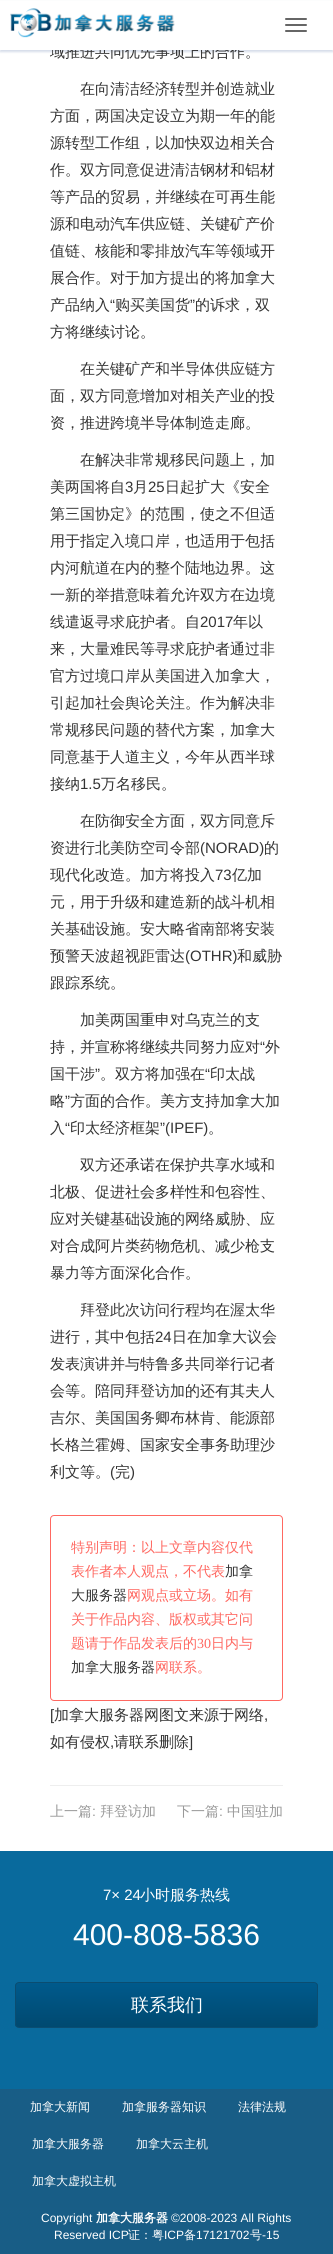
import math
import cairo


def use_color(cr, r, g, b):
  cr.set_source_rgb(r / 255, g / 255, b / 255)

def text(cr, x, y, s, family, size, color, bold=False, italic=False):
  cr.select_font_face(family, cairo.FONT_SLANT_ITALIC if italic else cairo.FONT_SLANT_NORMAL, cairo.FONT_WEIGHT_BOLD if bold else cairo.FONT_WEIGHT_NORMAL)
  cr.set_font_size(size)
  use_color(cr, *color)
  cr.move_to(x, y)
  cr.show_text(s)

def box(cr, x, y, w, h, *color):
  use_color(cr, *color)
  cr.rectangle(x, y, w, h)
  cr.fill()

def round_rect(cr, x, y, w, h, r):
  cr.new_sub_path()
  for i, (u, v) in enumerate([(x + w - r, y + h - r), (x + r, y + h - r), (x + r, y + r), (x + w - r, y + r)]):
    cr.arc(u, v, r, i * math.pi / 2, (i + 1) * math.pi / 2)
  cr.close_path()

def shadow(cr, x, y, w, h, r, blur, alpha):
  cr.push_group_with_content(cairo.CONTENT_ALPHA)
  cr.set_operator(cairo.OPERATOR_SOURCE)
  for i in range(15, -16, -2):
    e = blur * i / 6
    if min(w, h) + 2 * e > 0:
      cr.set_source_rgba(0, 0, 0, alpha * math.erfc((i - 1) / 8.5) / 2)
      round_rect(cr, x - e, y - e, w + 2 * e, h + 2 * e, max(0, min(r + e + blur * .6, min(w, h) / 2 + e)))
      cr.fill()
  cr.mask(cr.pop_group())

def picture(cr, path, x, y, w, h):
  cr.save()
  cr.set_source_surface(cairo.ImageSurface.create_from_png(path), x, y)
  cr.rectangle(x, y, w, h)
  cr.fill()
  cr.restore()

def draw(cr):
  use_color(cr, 255, 255, 255)
  cr.paint()
  use_color(cr, 2, 43, 119)
  shadow(cr, 0, 2, 333, 50, 0, 1, 0.16)
  round_rect(cr, 50.5, 1515.5, 232, 185, 3.5)
  use_color(cr, 255, 104, 97)
  cr.set_line_width(1)
  cr.stroke()
  box(cr, 50, 1785, 233, 1, 238, 238, 238)
  box(cr, 0, 1851, 333, 238, 9, 106, 157)
  cr.save()
  round_rect(cr, 15, 1982, 303, 46, 4)
  cr.clip()
  gradient = cairo.LinearGradient(167, 1983, 167, 2027)
  gradient.add_color_stop_rgba(0, 0, 0.353, 0.549, 1)
  gradient.add_color_stop_rgba(1, 0, 0.286, 0.439, 1)
  cr.set_source(gradient)
  cr.rectangle(15, 1983, 303, 44)
  cr.fill()
  cr.restore()
  round_rect(cr, 15.5, 1982.5, 302, 45, 3.5)
  use_color(cr, 11, 77, 113)
  cr.stroke()
  box(cr, 0, 2089, 333, 165, 24, 93, 134)
  text(cr, 50, 57, "域推进共同优先事项上的合作。", "WenQuanYi Zen Hei Medium", 15, (51, 51, 51))
  box(cr, 0, 1, 333, 49, 255, 255, 255)
  use_color(cr, 102, 102, 102)
  round_rect(cr, 285, 30, 22, 2, 1)
  cr.fill()
  round_rect(cr, 285, 24, 22, 2, 1)
  cr.fill()
  round_rect(cr, 285, 18, 22, 2, 1)
  cr.fill()
  picture(cr, "img_01.png", 10, 8, 165, 30)
  text(cr, 80, 94, "在向清洁经济转型并创造就业", "WenQuanYi Zen Hei Medium", 15, (51, 51, 51))
  text(cr, 50, 121, "方面，两国决定设立为期一年的能", "WenQuanYi Zen Hei Medium", 15, (51, 51, 51))
  text(cr, 50, 148, "源转型工作组，以加快双边相关合", "WenQuanYi Zen Hei Medium", 15, (51, 51, 51))
  text(cr, 50, 175, "作。双方同意促进清洁钢材和铝材", "WenQuanYi Zen Hei Medium", 15, (51, 51, 51))
  text(cr, 50, 202, "等产品的贸易，并继续在可再生能", "WenQuanYi Zen Hei Medium", 15, (51, 51, 51))
  text(cr, 50, 229, "源和电动汽车供应链、关键矿产价", "WenQuanYi Zen Hei Medium", 15, (51, 51, 51))
  text(cr, 50, 256, "值链、核能和零排放汽车等领域开", "WenQuanYi Zen Hei Medium", 15, (51, 51, 51))
  text(cr, 50, 283, "展合作。对于加方提出的将加拿大", "WenQuanYi Zen Hei Medium", 15, (51, 51, 51))
  text(cr, 50, 310, "产品纳入", "WenQuanYi Zen Hei Medium", 15, (51, 51, 51))
  text(cr, 110, 310, "“", "Liberation Sans", 15, (51, 51, 51))
  text(cr, 115, 310, "购买美国货", "WenQuanYi Zen Hei Medium", 15, (51, 51, 51))
  text(cr, 190, 310, "”", "Liberation Sans", 15, (51, 51, 51))
  text(cr, 195, 310, "的诉求，双", "WenQuanYi Zen Hei Medium", 15, (51, 51, 51))
  text(cr, 50, 337, "方将继续讨论。", "WenQuanYi Zen Hei Medium", 15, (51, 51, 51))
  text(cr, 80, 374, "在关键矿产和半导体供应链方", "WenQuanYi Zen Hei Medium", 15, (51, 51, 51))
  text(cr, 50, 401, "面，双方同意增加对相关产业的投", "WenQuanYi Zen Hei Medium", 15, (51, 51, 51))
  text(cr, 50, 428, "资，推进跨境半导体制造走廊。", "WenQuanYi Zen Hei Medium", 15, (51, 51, 51))
  text(cr, 80, 465, "在解决非常规移民问题上，加", "WenQuanYi Zen Hei Medium", 15, (51, 51, 51))
  text(cr, 50, 492, "美两国将自", "WenQuanYi Zen Hei Medium", 15, (51, 51, 51))
  text(cr, 125, 492, "3", "Liberation Sans", 15, (51, 51, 51))
  text(cr, 133, 492, "月", "WenQuanYi Zen Hei Medium", 15, (51, 51, 51))
  text(cr, 148, 492, "25", "Liberation Sans", 15, (51, 51, 51))
  text(cr, 165, 492, "日起扩大《安全", "WenQuanYi Zen Hei Medium", 15, (51, 51, 51))
  text(cr, 50, 519, "第三国协定》的范围，使之不但适", "WenQuanYi Zen Hei Medium", 15, (51, 51, 51))
  text(cr, 50, 546, "用于指定入境口岸，也适用于包括", "WenQuanYi Zen Hei Medium", 15, (51, 51, 51))
  text(cr, 50, 573, "内河航道在内的整个陆地边界。这", "WenQuanYi Zen Hei Medium", 15, (51, 51, 51))
  text(cr, 50, 600, "一新的举措意味着允许双方在边境", "WenQuanYi Zen Hei Medium", 15, (51, 51, 51))
  text(cr, 50, 627, "线遣返寻求庇护者。自", "WenQuanYi Zen Hei Medium", 15, (51, 51, 51))
  text(cr, 200, 627, "2017", "Liberation Sans", 15, (51, 51, 51))
  text(cr, 233, 627, "年以", "WenQuanYi Zen Hei Medium", 15, (51, 51, 51))
  text(cr, 50, 654, "来，大量难民等寻求庇护者通过非", "WenQuanYi Zen Hei Medium", 15, (51, 51, 51))
  text(cr, 50, 681, "官方过境口岸从美国进入加拿大，", "WenQuanYi Zen Hei Medium", 15, (51, 51, 51))
  text(cr, 50, 708, "引起加社会舆论关注。作为解决非", "WenQuanYi Zen Hei Medium", 15, (51, 51, 51))
  text(cr, 50, 735, "常规移民问题的替代方案，加拿大", "WenQuanYi Zen Hei Medium", 15, (51, 51, 51))
  text(cr, 50, 762, "同意基于人道主义，今年从西半球", "WenQuanYi Zen Hei Medium", 15, (51, 51, 51))
  text(cr, 50, 789, "接纳", "WenQuanYi Zen Hei Medium", 15, (51, 51, 51))
  text(cr, 80, 789, "1.5", "Liberation Sans", 15, (51, 51, 51))
  text(cr, 101, 789, "万名移民。", "WenQuanYi Zen Hei Medium", 15, (51, 51, 51))
  text(cr, 80, 826, "在防御安全方面，双方同意斥", "WenQuanYi Zen Hei Medium", 15, (51, 51, 51))
  text(cr, 50, 853, "资进行北美防空司令部", "WenQuanYi Zen Hei Medium", 15, (51, 51, 51))
  text(cr, 200, 853, "(NORAD)", "Liberation Sans", 15, (51, 51, 51))
  text(cr, 264, 853, "的", "WenQuanYi Zen Hei Medium", 15, (51, 51, 51))
  text(cr, 50, 880, "现代化改造。加方将投入", "WenQuanYi Zen Hei Medium", 15, (51, 51, 51))
  text(cr, 215, 880, "73", "Liberation Sans", 15, (51, 51, 51))
  text(cr, 232, 880, "亿加", "WenQuanYi Zen Hei Medium", 15, (51, 51, 51))
  text(cr, 50, 907, "元，用于升级和建造新的战斗机相", "WenQuanYi Zen Hei Medium", 15, (51, 51, 51))
  text(cr, 50, 934, "关基础设施。安大略省南部将安装", "WenQuanYi Zen Hei Medium", 15, (51, 51, 51))
  text(cr, 50, 961, "预警天波超视距雷达", "WenQuanYi Zen Hei Medium", 15, (51, 51, 51))
  text(cr, 185, 961, "(OTHR)", "Liberation Sans", 15, (51, 51, 51))
  text(cr, 237, 961, "和威胁", "WenQuanYi Zen Hei Medium", 15, (51, 51, 51))
  text(cr, 50, 988, "跟踪系统。", "WenQuanYi Zen Hei Medium", 15, (51, 51, 51))
  text(cr, 80, 1025, "加美两国重申对乌克兰的支", "WenQuanYi Zen Hei Medium", 15, (51, 51, 51))
  text(cr, 50, 1052, "持，并宣称将继续共同努力应对", "WenQuanYi Zen Hei Medium", 15, (51, 51, 51))
  text(cr, 260, 1052, "“", "Liberation Sans", 15, (51, 51, 51))
  text(cr, 265, 1052, "外", "WenQuanYi Zen Hei Medium", 15, (51, 51, 51))
  text(cr, 50, 1079, "国干涉", "WenQuanYi Zen Hei Medium", 15, (51, 51, 51))
  text(cr, 95, 1079, "”", "Liberation Sans", 15, (51, 51, 51))
  text(cr, 100, 1079, "。双方将加强在", "WenQuanYi Zen Hei Medium", 15, (51, 51, 51))
  text(cr, 205, 1079, "“", "Liberation Sans", 15, (51, 51, 51))
  text(cr, 210, 1079, "印太战", "WenQuanYi Zen Hei Medium", 15, (51, 51, 51))
  text(cr, 50, 1106, "略", "WenQuanYi Zen Hei Medium", 15, (51, 51, 51))
  text(cr, 65, 1106, "”", "Liberation Sans", 15, (51, 51, 51))
  text(cr, 70, 1106, "方面的合作。美方支持加拿大加", "WenQuanYi Zen Hei Medium", 15, (51, 51, 51))
  text(cr, 50, 1133, "入", "WenQuanYi Zen Hei Medium", 15, (51, 51, 51))
  text(cr, 65, 1133, "“", "Liberation Sans", 15, (51, 51, 51))
  text(cr, 70, 1133, "印太经济框架", "WenQuanYi Zen Hei Medium", 15, (51, 51, 51))
  text(cr, 160, 1133, "”(IPEF)", "Liberation Sans", 15, (51, 51, 51))
  text(cr, 208, 1133, "。", "WenQuanYi Zen Hei Medium", 15, (51, 51, 51))
  text(cr, 80, 1170, "双方还承诺在保护共享水域和", "WenQuanYi Zen Hei Medium", 15, (51, 51, 51))
  text(cr, 50, 1197, "北极、促进社会多样性和包容性、", "WenQuanYi Zen Hei Medium", 15, (51, 51, 51))
  text(cr, 50, 1224, "应对关键基础设施的网络威胁、应", "WenQuanYi Zen Hei Medium", 15, (51, 51, 51))
  text(cr, 50, 1251, "对合成阿片类药物危机、减少枪支", "WenQuanYi Zen Hei Medium", 15, (51, 51, 51))
  text(cr, 50, 1278, "暴力等方面深化合作。", "WenQuanYi Zen Hei Medium", 15, (51, 51, 51))
  text(cr, 80, 1315, "拜登此次访问行程均在渥太华", "WenQuanYi Zen Hei Medium", 15, (51, 51, 51))
  text(cr, 50, 1342, "进行，其中包括", "WenQuanYi Zen Hei Medium", 15, (51, 51, 51))
  text(cr, 155, 1342, "24", "Liberation Sans", 15, (51, 51, 51))
  text(cr, 172, 1342, "日在加拿大议会", "WenQuanYi Zen Hei Medium", 15, (51, 51, 51))
  text(cr, 50, 1369, "发表演讲并与特鲁多共同举行记者", "WenQuanYi Zen Hei Medium", 15, (51, 51, 51))
  text(cr, 50, 1396, "会等。陪同拜登访加的还有其夫人", "WenQuanYi Zen Hei Medium", 15, (51, 51, 51))
  text(cr, 50, 1423, "吉尔、美国国务卿布林肯、能源部", "WenQuanYi Zen Hei Medium", 15, (51, 51, 51))
  text(cr, 50, 1450, "长格兰霍姆、国家安全事务助理沙", "WenQuanYi Zen Hei Medium", 15, (51, 51, 51))
  text(cr, 50, 1477, "利文等。", "WenQuanYi Zen Hei Medium", 15, (51, 51, 51))
  text(cr, 110, 1477, "(", "Liberation Sans", 15, (51, 51, 51))
  text(cr, 115, 1477, "完", "WenQuanYi Zen Hei Medium", 15, (51, 51, 51))
  text(cr, 130, 1477, ")", "Liberation Sans", 15, (51, 51, 51))
  text(cr, 71, 1552, "特别声明：以上文章内容仅代", "WenQuanYi Zen Hei Medium", 14, (255, 104, 97))
  text(cr, 71, 1576, "表作者本人观点，不代表", "WenQuanYi Zen Hei Medium", 14, (255, 104, 97))
  text(cr, 225, 1576, "加拿", "WenQuanYi Zen Hei Medium", 14, (51, 51, 51))
  text(cr, 71, 1600, "大服务器", "WenQuanYi Zen Hei Medium", 14, (51, 51, 51))
  text(cr, 127, 1600, "网观点或立场。如有", "WenQuanYi Zen Hei Medium", 14, (255, 104, 97))
  text(cr, 71, 1624, "关于作品内容、版权或其它问", "WenQuanYi Zen Hei Medium", 14, (255, 104, 97))
  text(cr, 71, 1648, "题请于作品发表后的", "WenQuanYi Zen Hei Medium", 14, (255, 104, 97))
  text(cr, 197, 1648, "30", "Liberation Serif", 14, (255, 104, 97))
  text(cr, 211, 1648, "日内与", "WenQuanYi Zen Hei Medium", 14, (255, 104, 97))
  text(cr, 71, 1672, "加拿大服务器", "WenQuanYi Zen Hei Medium", 14, (51, 51, 51))
  text(cr, 155, 1672, "网联系。", "WenQuanYi Zen Hei Medium", 14, (255, 104, 97))
  text(cr, 50, 1720, "[", "Liberation Sans", 15, (51, 51, 51))
  text(cr, 54, 1720, "加拿大服务器网图文来源于网络", "WenQuanYi Zen Hei Medium", 15, (51, 51, 51))
  text(cr, 264, 1720, ",", "Liberation Sans", 15, (51, 51, 51))
  text(cr, 50, 1747, "如有侵权", "WenQuanYi Zen Hei Medium", 15, (51, 51, 51))
  text(cr, 110, 1747, ",", "Liberation Sans", 15, (51, 51, 51))
  text(cr, 114, 1747, "请联系删除", "WenQuanYi Zen Hei Medium", 15, (51, 51, 51))
  text(cr, 189, 1747, "]", "Liberation Sans", 15, (51, 51, 51))
  text(cr, 50, 1816, "上一篇", "WenQuanYi Zen Hei Medium", 14, (153, 153, 153))
  text(cr, 92, 1816, ":", "Liberation Sans", 14, (153, 153, 153))
  text(cr, 100, 1816, "拜登访加", "WenQuanYi Zen Hei Medium", 14, (153, 153, 153))
  text(cr, 177, 1816, "下一篇", "WenQuanYi Zen Hei Medium", 14, (153, 153, 153))
  text(cr, 219, 1816, ":", "Liberation Sans", 14, (153, 153, 153))
  text(cr, 227, 1816, "中国驻加", "WenQuanYi Zen Hei Medium", 14, (153, 153, 153))
  text(cr, 103, 1900, "7× 24", "Liberation Sans", 15, (255, 255, 255))
  text(cr, 140, 1900, "小时服务热线", "WenQuanYi Zen Hei Medium", 15, (255, 255, 255))
  text(cr, 73, 1945, "400-808-5836", "Liberation Sans", 30, (255, 255, 255))
  text(cr, 131, 2011, "联系我们", "WenQuanYi Zen Hei Medium", 18, (255, 255, 255))
  text(cr, 30, 2111, "加拿大新闻", "WenQuanYi Zen Hei Medium", 12, (255, 255, 255))
  text(cr, 122, 2111, "加拿服务器知识", "WenQuanYi Zen Hei Medium", 12, (255, 255, 255))
  text(cr, 238, 2111, "法律法规", "WenQuanYi Zen Hei Medium", 12, (255, 255, 255))
  text(cr, 32, 2148, "加拿大服务器", "WenQuanYi Zen Hei Medium", 12, (255, 255, 255))
  text(cr, 136, 2148, "加拿大云主机", "WenQuanYi Zen Hei Medium", 12, (255, 255, 255))
  text(cr, 32, 2185, "加拿大虚拟主机", "WenQuanYi Zen Hei Medium", 12, (255, 255, 255))
  text(cr, 41, 2222, "Copyright", "Liberation Sans", 12, (255, 255, 255))
  text(cr, 96, 2222, "加拿大服务器", "WenQuanYi Zen Hei", 12, (255, 255, 255), bold=True)
  text(cr, 171, 2222, "©2008-2023 All Rights", "Liberation Sans", 12, (255, 255, 255))
  text(cr, 54, 2239, "Reserved ICP", "Liberation Sans", 12, (255, 255, 255))
  text(cr, 128, 2239, "证：粤", "WenQuanYi Zen Hei Medium", 12, (255, 255, 255))
  text(cr, 164, 2239, "ICP", "Liberation Sans", 12, (255, 255, 255))
  text(cr, 184, 2239, "备", "WenQuanYi Zen Hei Medium", 12, (255, 255, 255))
  text(cr, 196, 2239, "17121702", "Liberation Sans", 12, (255, 255, 255))
  text(cr, 250, 2239, "号", "WenQuanYi Zen Hei Medium", 12, (255, 255, 255))
  text(cr, 262, 2239, "-15", "Liberation Sans", 12, (255, 255, 255))


surface = cairo.ImageSurface(cairo.FORMAT_RGB24, 333, 2254)
cr = cairo.Context(surface)
options = cairo.FontOptions()
options.set_hint_metrics(cairo.HINT_METRICS_OFF)
options.set_hint_style(cairo.HINT_STYLE_NONE)
cr.set_font_options(options)
cr.set_miter_limit(4)
draw(cr)
surface.write_to_png("out.png")
